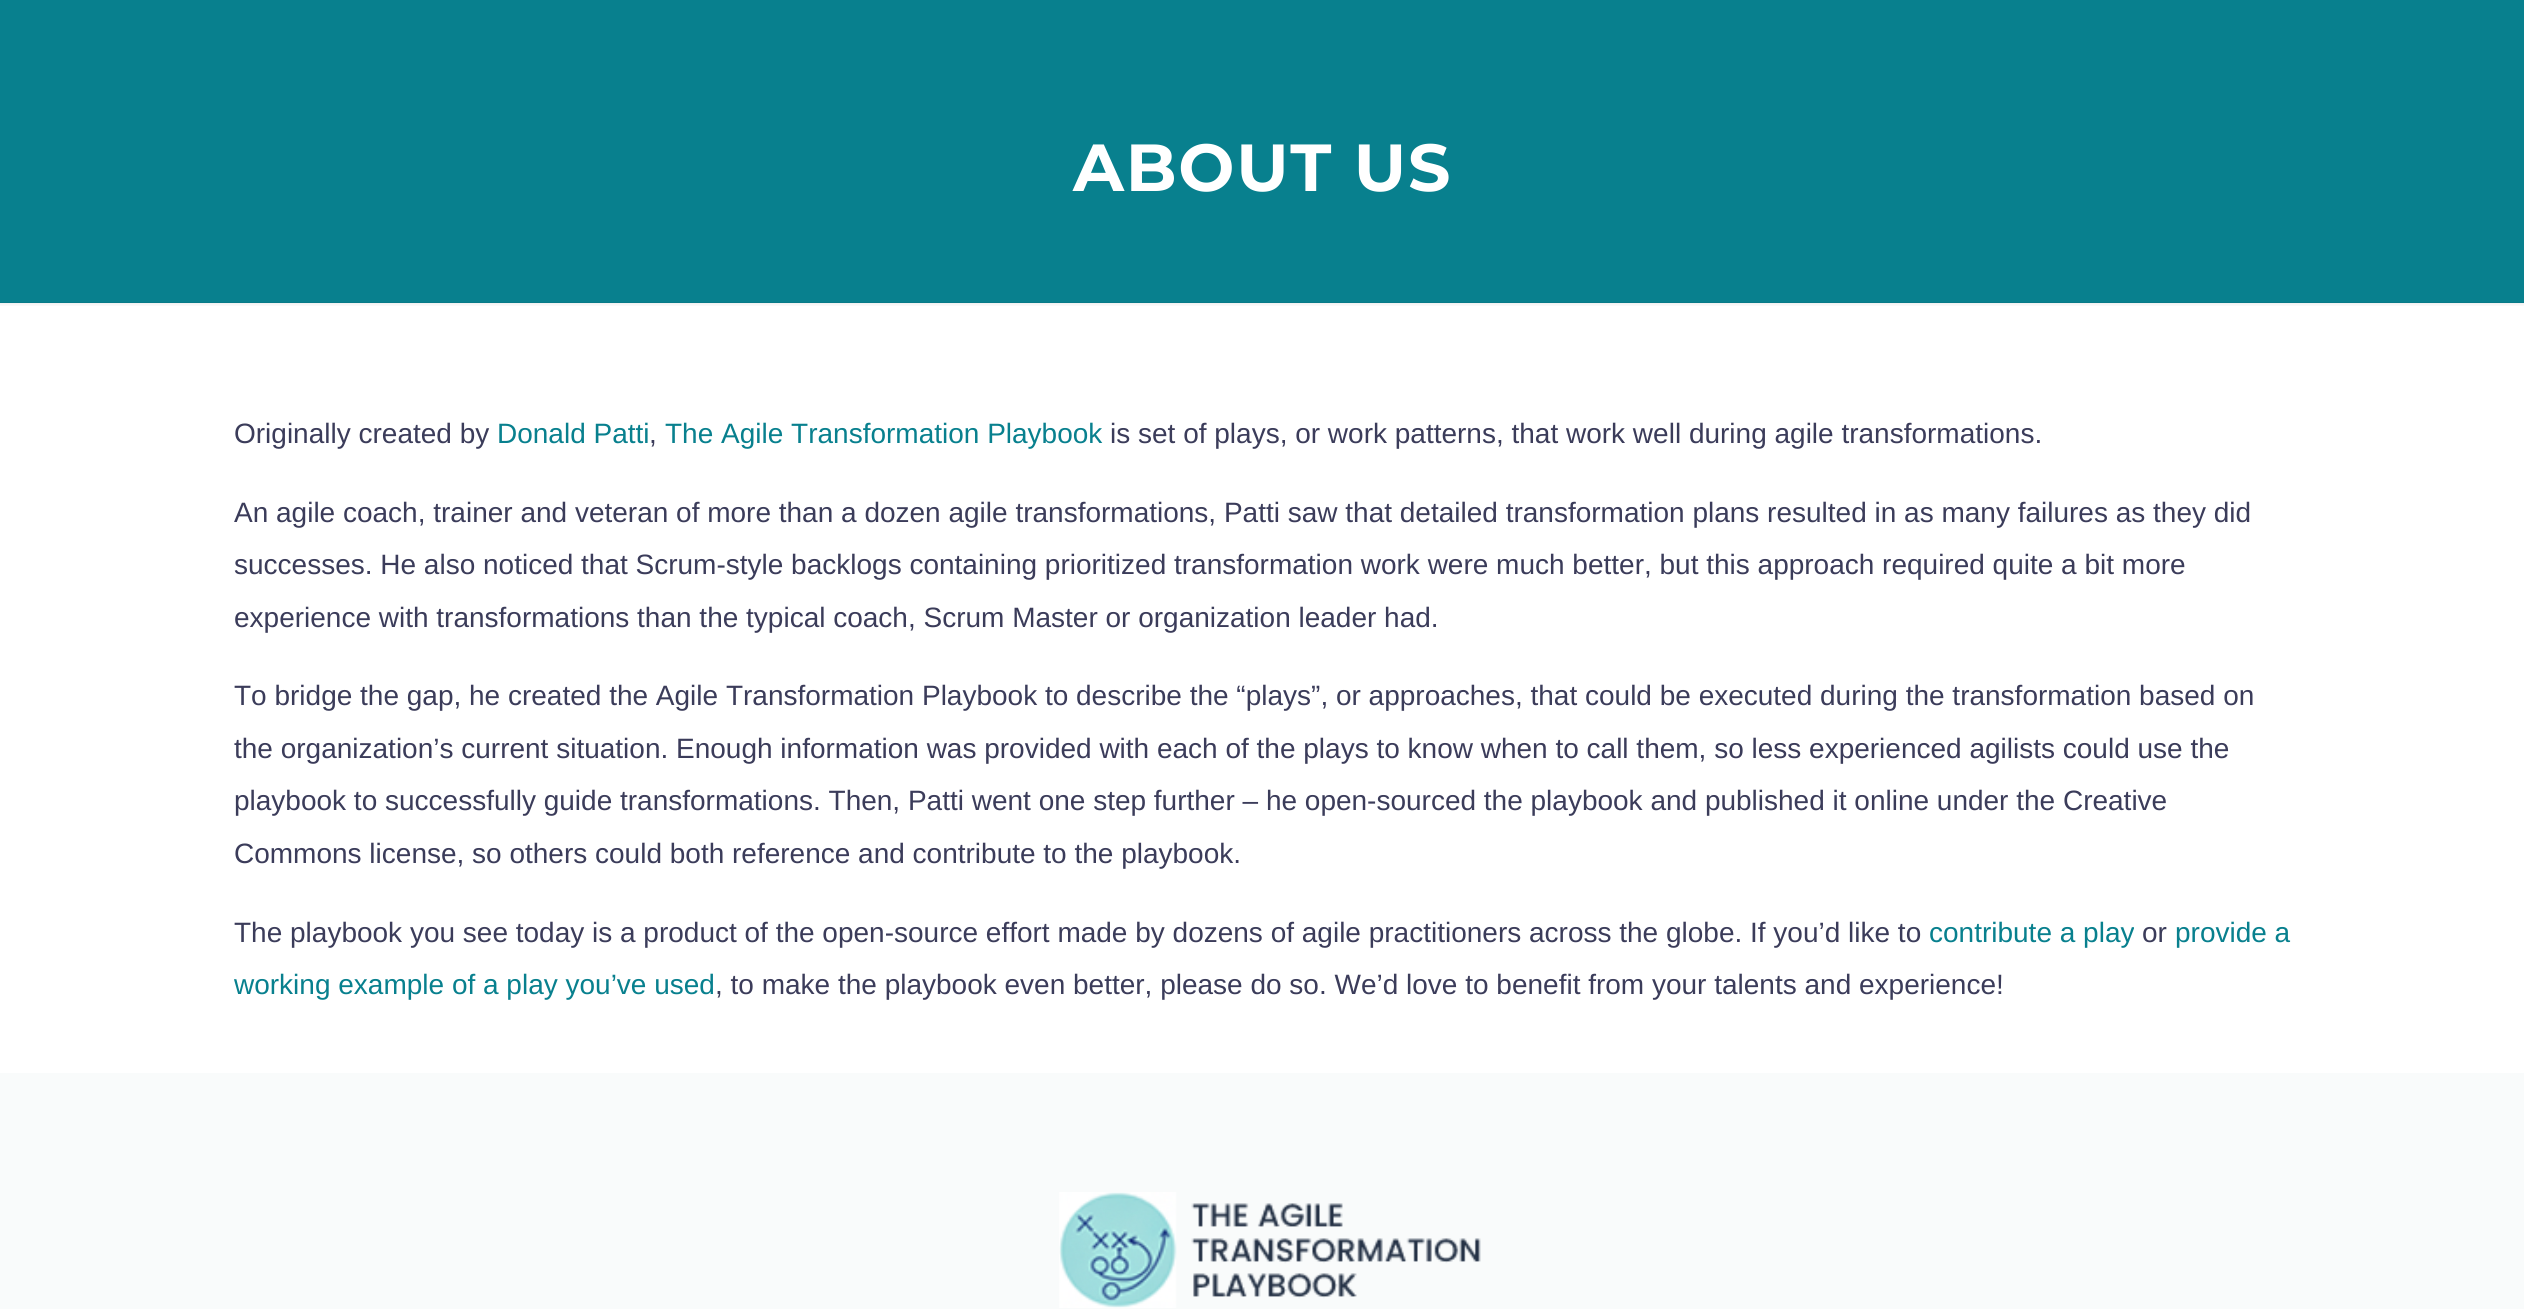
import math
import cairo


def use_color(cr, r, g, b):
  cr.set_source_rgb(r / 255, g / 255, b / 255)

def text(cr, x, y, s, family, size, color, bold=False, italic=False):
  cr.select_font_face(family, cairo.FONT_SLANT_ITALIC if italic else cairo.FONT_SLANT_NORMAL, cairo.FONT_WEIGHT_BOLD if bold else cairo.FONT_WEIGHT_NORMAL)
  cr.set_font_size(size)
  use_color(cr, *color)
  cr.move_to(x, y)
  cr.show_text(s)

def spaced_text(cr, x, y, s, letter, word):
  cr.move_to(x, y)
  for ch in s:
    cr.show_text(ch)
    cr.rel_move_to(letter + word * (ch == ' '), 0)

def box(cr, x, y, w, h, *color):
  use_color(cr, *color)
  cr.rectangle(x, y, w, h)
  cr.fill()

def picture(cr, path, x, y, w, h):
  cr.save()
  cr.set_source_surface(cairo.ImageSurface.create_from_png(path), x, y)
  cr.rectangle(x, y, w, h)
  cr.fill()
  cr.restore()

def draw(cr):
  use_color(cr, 255, 255, 255)
  cr.paint()
  box(cr, 0, 0, 2524, 303, 8, 128, 142)
  picture(cr, "img_01.png", 0, 302, 2524, 4)
  box(cr, 0, 1073, 2524, 236, 249, 251, 251)
  picture(cr, "img_02.png", 1059, 1192, 422, 116)
  cr.select_font_face("Montserrat", cairo.FONT_SLANT_NORMAL, cairo.FONT_WEIGHT_BOLD)
  cr.set_font_size(66.5)
  use_color(cr, 255, 255, 255)
  spaced_text(cr, 1073, 191, "ABOUT US", 1.75, 0)
  text(cr, 234, 443, "Originally created by", "Liberation Sans", 28, (59, 60, 90))
  text(cr, 497, 443, "Donald Patti", "Liberation Sans", 28, (8, 128, 142))
  text(cr, 649, 443, ",", "Liberation Sans", 28, (59, 60, 90))
  text(cr, 665, 443, "The Agile Transformation Playbook", "Liberation Sans", 28, (8, 128, 142))
  text(cr, 1110, 443, "is set of plays, or work patterns, that work well during agile transformations.", "Liberation Sans", 28, (59, 60, 90))
  text(cr, 234, 522, "An agile coach, trainer and veteran of more than a dozen agile transformations, Patti saw that detailed transformation plans resulted in as many failures as they did", "Liberation Sans", 28, (59, 60, 90))
  text(cr, 234, 574, "successes. He also noticed that Scrum-style backlogs containing prioritized transformation work were much better, but this approach required quite a bit more", "Liberation Sans", 28, (59, 60, 90))
  text(cr, 234, 627, "experience with transformations than the typical coach, Scrum Master or organization leader had.", "Liberation Sans", 28, (59, 60, 90))
  text(cr, 234, 705, "To bridge the gap, he created the Agile Transformation Playbook to describe the “plays”, or approaches, that could be executed during the transformation based on", "Liberation Sans", 28, (59, 60, 90))
  text(cr, 234, 758, "the organization’s current situation. Enough information was provided with each of the plays to know when to call them, so less experienced agilists could use the", "Liberation Sans", 28, (59, 60, 90))
  text(cr, 234, 810, "playbook to successfully guide transformations. Then, Patti went one step further – he open-sourced the playbook and published it online under the Creative", "Liberation Sans", 28, (59, 60, 90))
  text(cr, 234, 863, "Commons license, so others could both reference and contribute to the playbook.", "Liberation Sans", 28, (59, 60, 90))
  text(cr, 234, 942, "The playbook you see today is a product of the open-source effort made by dozens of agile practitioners across the globe. If you’d like to", "Liberation Sans", 28, (59, 60, 90))
  text(cr, 1929, 942, "contribute a play", "Liberation Sans", 28, (8, 128, 142))
  text(cr, 2142, 942, "or", "Liberation Sans", 28, (59, 60, 90))
  text(cr, 2175, 942, "provide a", "Liberation Sans", 28, (8, 128, 142))
  text(cr, 234, 994, "working example of a play you’ve used", "Liberation Sans", 28, (8, 128, 142))
  text(cr, 715, 994, ", to make the playbook even better, please do so. We’d love to benefit from your talents and experience!", "Liberation Sans", 28, (59, 60, 90))


surface = cairo.ImageSurface(cairo.FORMAT_RGB24, 2524, 1309)
cr = cairo.Context(surface)
options = cairo.FontOptions()
options.set_hint_metrics(cairo.HINT_METRICS_OFF)
options.set_hint_style(cairo.HINT_STYLE_NONE)
cr.set_font_options(options)
cr.set_miter_limit(4)
draw(cr)
surface.write_to_png("out.png")
